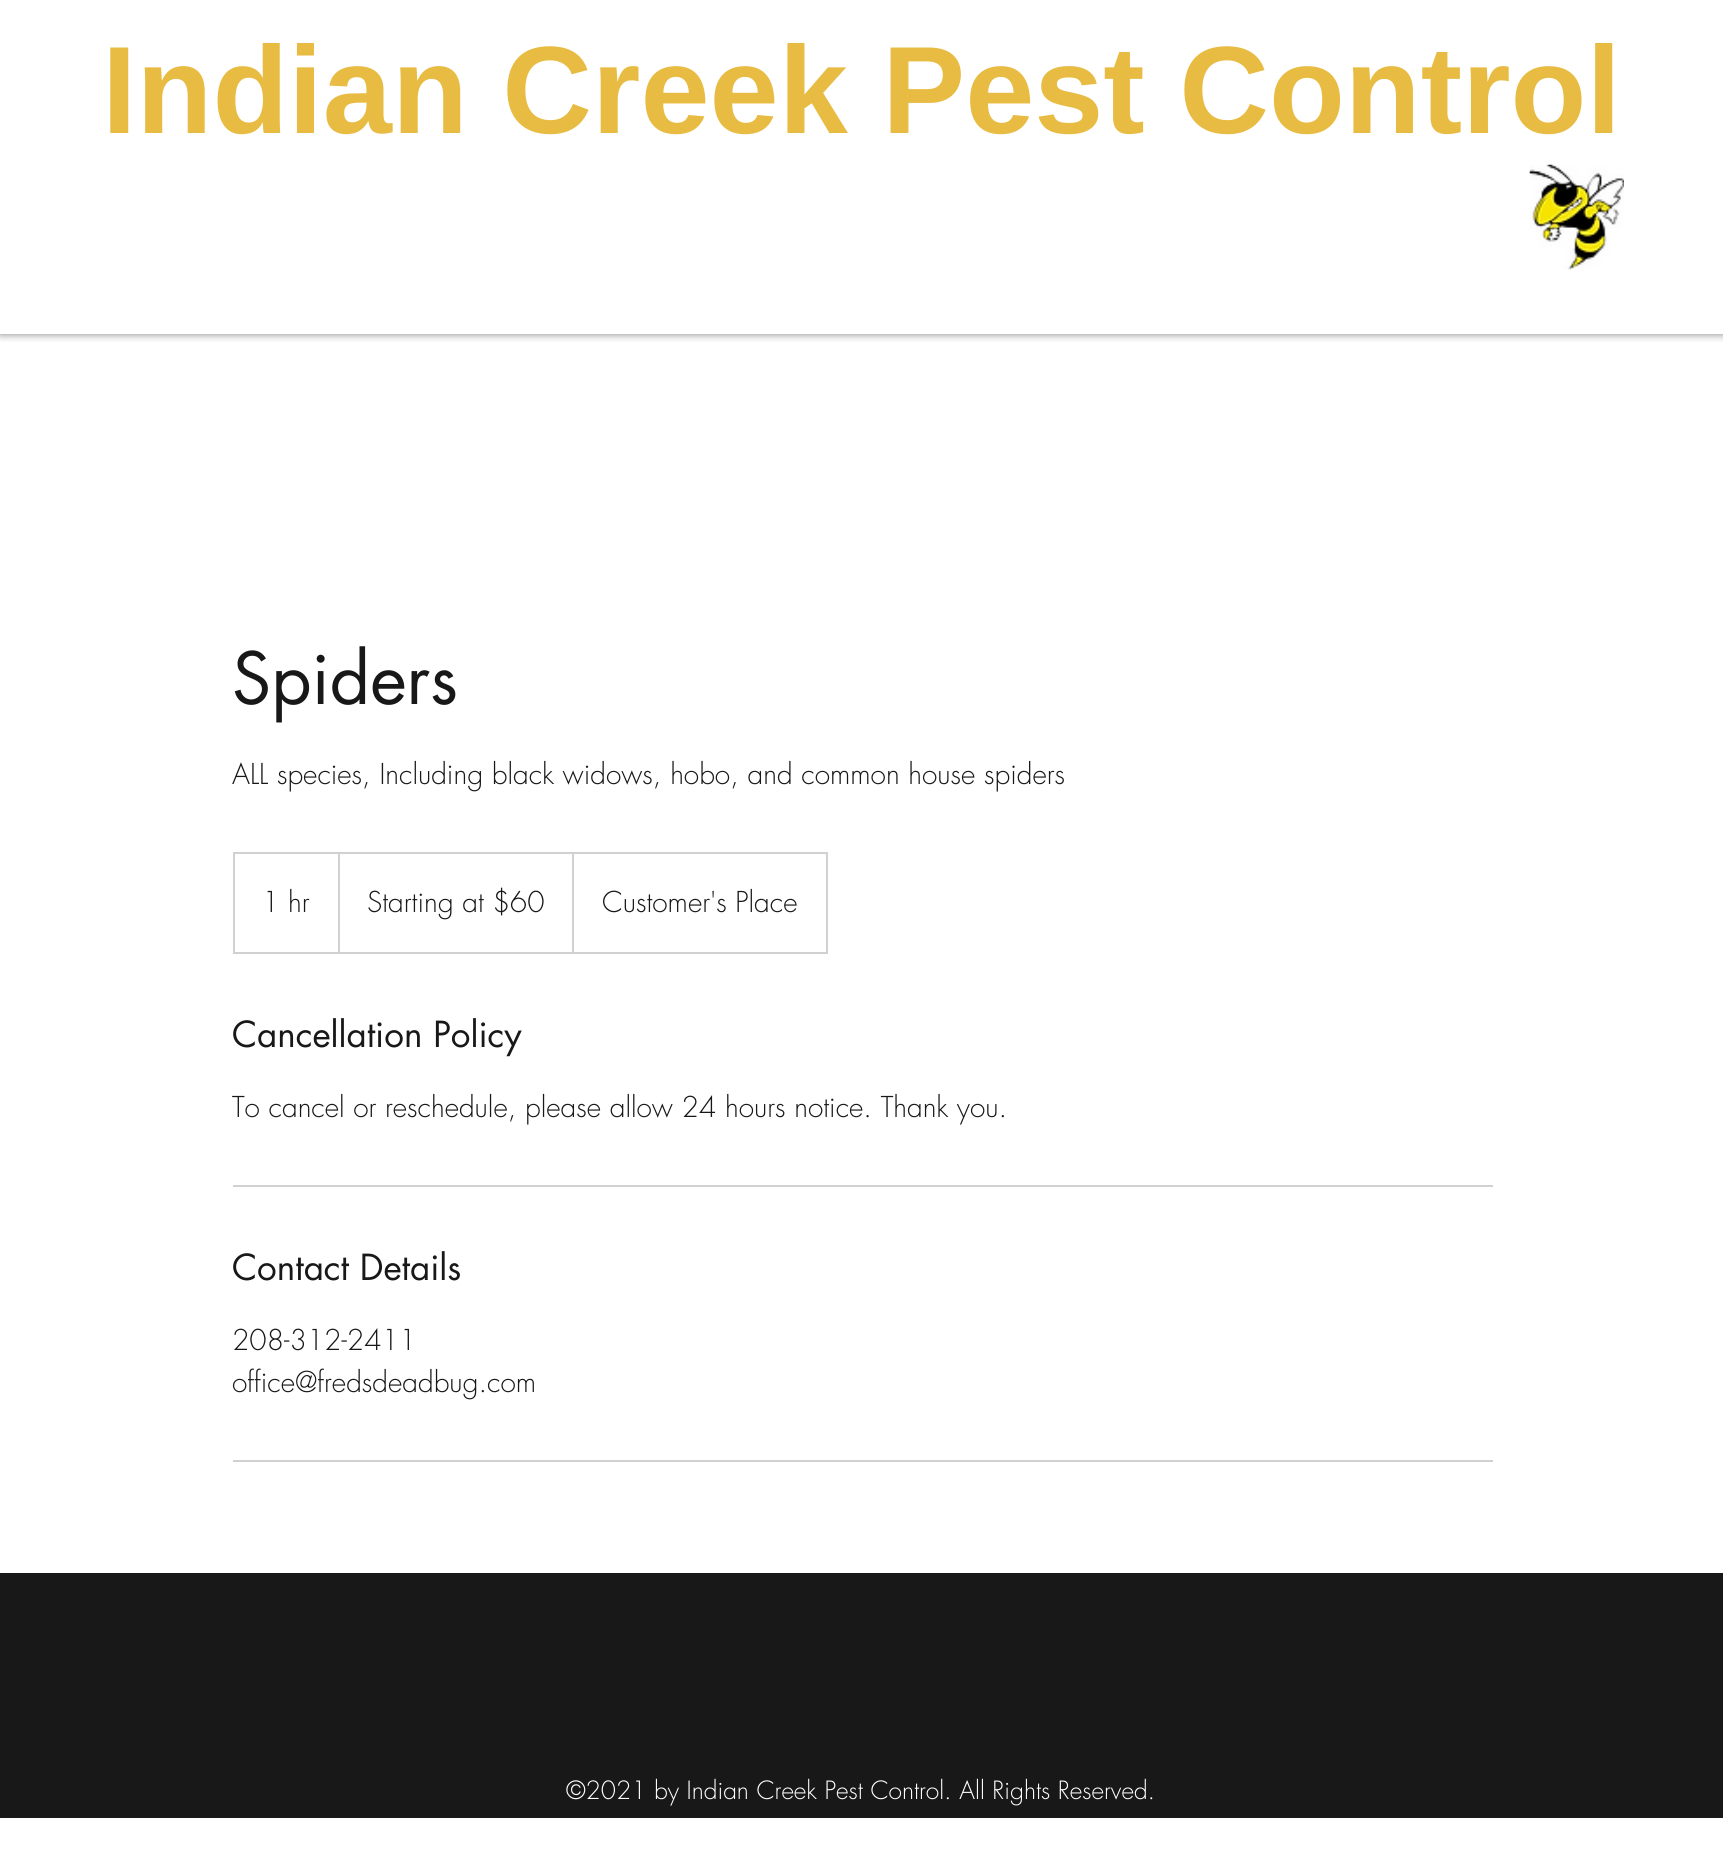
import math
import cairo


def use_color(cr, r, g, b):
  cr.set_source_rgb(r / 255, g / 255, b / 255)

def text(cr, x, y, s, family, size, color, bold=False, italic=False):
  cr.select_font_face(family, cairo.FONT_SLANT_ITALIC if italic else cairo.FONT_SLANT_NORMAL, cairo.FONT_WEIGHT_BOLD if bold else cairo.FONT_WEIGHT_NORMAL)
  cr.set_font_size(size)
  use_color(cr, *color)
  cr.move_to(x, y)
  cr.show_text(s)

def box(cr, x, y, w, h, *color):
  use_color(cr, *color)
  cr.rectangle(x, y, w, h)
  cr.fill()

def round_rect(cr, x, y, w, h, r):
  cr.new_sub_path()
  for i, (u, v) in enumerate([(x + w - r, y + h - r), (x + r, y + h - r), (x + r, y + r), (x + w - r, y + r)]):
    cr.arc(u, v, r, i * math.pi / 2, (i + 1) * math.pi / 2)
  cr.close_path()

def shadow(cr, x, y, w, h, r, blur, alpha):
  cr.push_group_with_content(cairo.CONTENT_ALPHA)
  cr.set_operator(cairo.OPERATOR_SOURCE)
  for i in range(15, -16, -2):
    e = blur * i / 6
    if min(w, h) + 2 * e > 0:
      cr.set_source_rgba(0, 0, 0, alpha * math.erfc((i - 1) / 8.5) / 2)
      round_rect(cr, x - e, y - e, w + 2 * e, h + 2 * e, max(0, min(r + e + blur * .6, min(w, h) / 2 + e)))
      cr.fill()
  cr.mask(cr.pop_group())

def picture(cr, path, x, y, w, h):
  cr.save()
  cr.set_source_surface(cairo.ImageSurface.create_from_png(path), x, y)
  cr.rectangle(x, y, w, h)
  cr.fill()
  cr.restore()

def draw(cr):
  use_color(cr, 255, 255, 255)
  cr.paint()
  cr.save()
  cr.rectangle(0, 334, 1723, 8)
  cr.clip()
  use_color(cr, 0, 0, 0)
  shadow(cr, 0, 0, 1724, 334, 0, 4.5, 0.5)
  cr.restore()
  picture(cr, "img_01.png", 1529, 164, 95, 106)
  cr.rectangle(234, 853, 593, 100)
  use_color(cr, 209, 209, 209)
  cr.stroke()
  cr.save()
  cr.rectangle(235, 854, 591, 98)
  cr.clip()
  cr.new_path()
  cr.move_to(338, 952)
  cr.line_to(338, 852)
  cr.line_to(340, 854)
  cr.line_to(340, 952)
  cr.close_path()
  cr.fill()
  cr.new_path()
  cr.move_to(572, 952)
  cr.line_to(572, 852)
  cr.line_to(574, 854)
  cr.line_to(574, 952)
  cr.close_path()
  cr.fill()
  cr.restore()
  box(cr, 233, 1185, 1260, 2, 209, 209, 209)
  box(cr, 233, 1460, 1260, 2, 209, 209, 209)
  box(cr, 0, 1573, 1723, 245, 24, 24, 24)
  text(cr, 102, 133, "Indian Creek Pest Control", "Liberation Sans", 124.25, (232, 187, 66), bold=True)
  text(cr, 232, 704, "Spiders", "futura", 70, (24, 24, 24))
  text(cr, 232, 784, "ALL species, Including black widows, hobo, and common house spiders", "futura Light", 28, (24, 24, 24))
  text(cr, 262, 912, "1 hr", "futura Light", 28, (24, 24, 24))
  text(cr, 367, 912, "Starting at $60", "futura Light", 28, (24, 24, 24))
  text(cr, 602, 912, "Customer's Place", "futura Light", 28, (24, 24, 24))
  text(cr, 232, 1047, "Cancellation Policy", "futura", 35, (24, 24, 24))
  text(cr, 232, 1117, "To cancel or reschedule, please allow 24 hours notice. Thank you.", "futura Light", 28, (24, 24, 24))
  text(cr, 232, 1280, "Contact Details", "futura", 35, (24, 24, 24))
  text(cr, 232, 1350, "208-312-2411", "futura Light", 28, (24, 24, 24))
  text(cr, 232, 1392, "office@fredsdeadbug.com", "futura Light", 28, (24, 24, 24))
  text(cr, 566, 1799, "©2021 by Indian Creek Pest Control. All Rights Reserved.", "futura Light", 24.5, (255, 255, 255))


surface = cairo.ImageSurface(cairo.FORMAT_RGB24, 1723, 1855)
cr = cairo.Context(surface)
options = cairo.FontOptions()
options.set_hint_metrics(cairo.HINT_METRICS_OFF)
options.set_hint_style(cairo.HINT_STYLE_NONE)
cr.set_font_options(options)
cr.set_miter_limit(4)
draw(cr)
surface.write_to_png("out.png")
